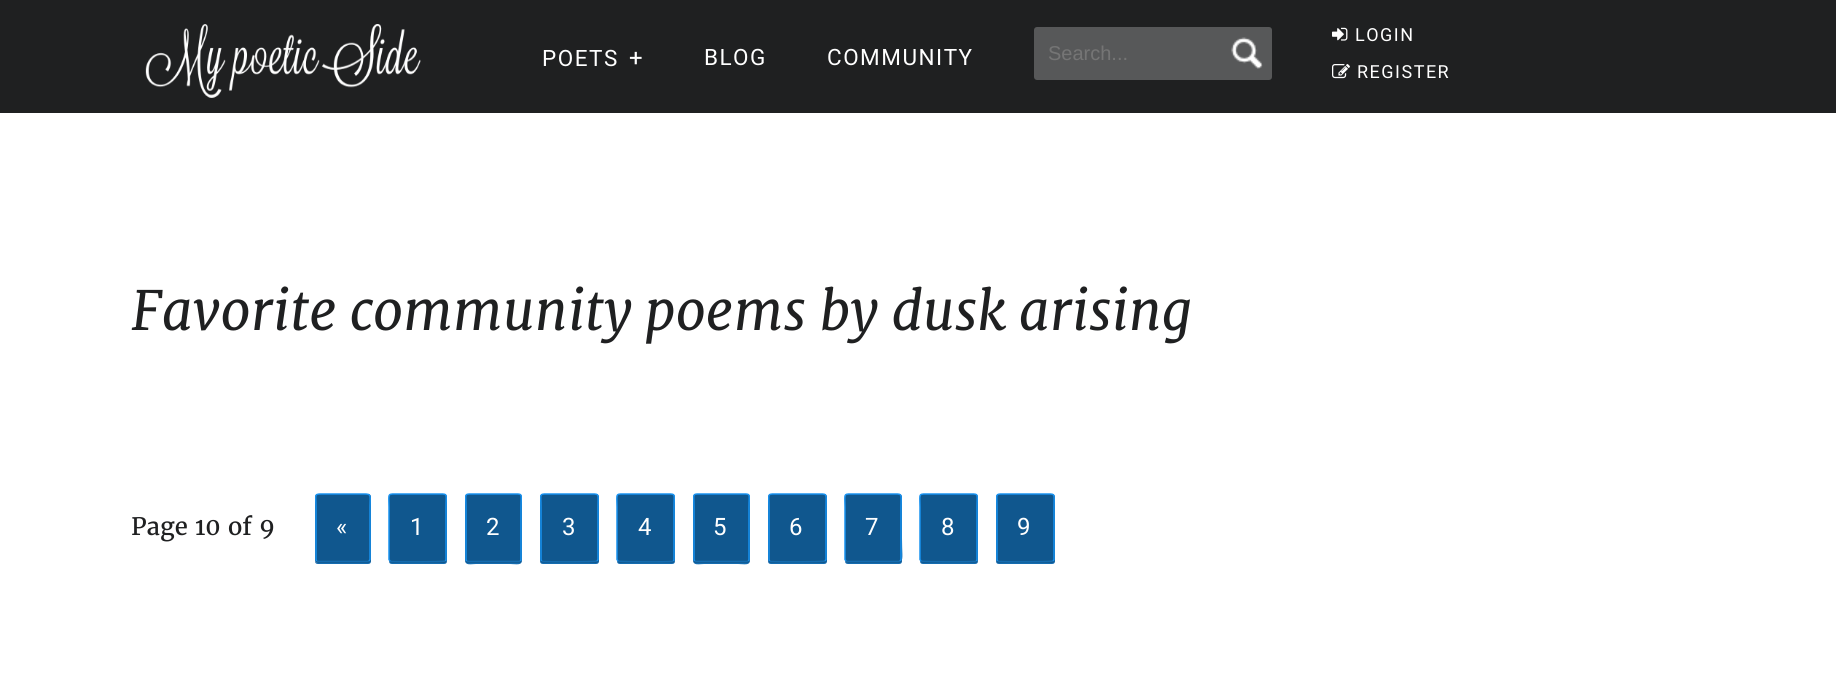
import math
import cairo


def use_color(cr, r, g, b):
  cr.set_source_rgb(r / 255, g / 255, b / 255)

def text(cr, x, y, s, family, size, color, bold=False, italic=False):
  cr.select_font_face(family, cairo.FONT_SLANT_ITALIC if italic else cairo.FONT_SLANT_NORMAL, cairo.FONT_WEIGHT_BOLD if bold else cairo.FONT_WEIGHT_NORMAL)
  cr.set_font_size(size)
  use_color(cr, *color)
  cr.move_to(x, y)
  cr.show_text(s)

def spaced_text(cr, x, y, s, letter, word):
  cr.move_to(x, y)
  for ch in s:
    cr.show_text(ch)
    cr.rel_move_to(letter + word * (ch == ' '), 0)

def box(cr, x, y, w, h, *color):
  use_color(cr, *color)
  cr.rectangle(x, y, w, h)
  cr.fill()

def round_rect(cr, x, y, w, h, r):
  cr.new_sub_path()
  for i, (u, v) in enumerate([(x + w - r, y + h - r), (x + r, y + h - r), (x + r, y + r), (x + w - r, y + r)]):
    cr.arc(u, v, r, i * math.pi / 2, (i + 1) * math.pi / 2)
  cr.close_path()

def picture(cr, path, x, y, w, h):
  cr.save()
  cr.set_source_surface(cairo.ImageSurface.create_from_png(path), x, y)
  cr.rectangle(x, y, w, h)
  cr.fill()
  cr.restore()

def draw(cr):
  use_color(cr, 31, 32, 33)
  cr.paint()
  picture(cr, "img_01.png", 145, 24, 276, 74)
  use_color(cr, 87, 88, 89)
  round_rect(cr, 1034, 27, 238, 53, 3)
  cr.fill()
  picture(cr, "img_02.png", 1231, 37, 32, 32)
  picture(cr, "img_03.png", 1332, 27, 16, 14)
  picture(cr, "img_04.png", 1332, 64, 18, 15)
  box(cr, 0, 113, 1836, 575, 255, 255, 255)
  use_color(cr, 21, 108, 175)
  cr.new_path()
  cr.move_to(315, 560)
  cr.line_to(315, 561)
  cr.curve_to(315, 563, 316, 564, 318, 564)
  cr.line_to(368, 564)
  cr.curve_to(370, 564, 371, 563, 371, 561)
  cr.line_to(371, 498)
  cr.line_to(370, 496)
  cr.line_to(370, 538)
  cr.curve_to(370, 566, 376, 562, 351, 562)
  cr.line_to(326, 562)
  cr.curve_to(325, 562, 315, 565, 315, 560)
  cr.close_path()
  cr.fill()
  use_color(cr, 16, 87, 142)
  round_rect(cr, 315, 494, 56, 69, 3)
  cr.fill()
  cr.new_path()
  cr.move_to(369, 561)
  cr.line_to(367.5, 561.5)
  cr.line_to(318, 561.5)
  cr.line_to(316.5, 561)
  use_color(cr, 21, 108, 175)
  cr.set_line_width(1.5)
  cr.stroke()
  cr.new_path()
  cr.move_to(316.5, 561)
  cr.line_to(316, 559.5)
  cr.line_to(316, 507)
  cr.curve_to(316, 493, 313, 494, 326, 494)
  cr.line_to(359, 494)
  cr.curve_to(372.5, 494, 370, 493, 370, 507)
  cr.line_to(370, 559.5)
  cr.line_to(369, 561)
  use_color(cr, 23, 145, 239)
  cr.stroke()
  use_color(cr, 21, 108, 175)
  cr.new_path()
  cr.move_to(389, 561)
  cr.curve_to(389, 563, 390, 564, 392, 564)
  cr.line_to(444, 564)
  cr.curve_to(446, 564, 447, 563, 447, 561)
  cr.line_to(447, 560)
  cr.curve_to(447, 561, 446, 562, 444, 562)
  cr.line_to(392, 562)
  cr.curve_to(390, 562, 390, 562, 389, 561)
  cr.close_path()
  cr.fill()
  use_color(cr, 16, 87, 142)
  round_rect(cr, 389, 494, 58, 69, 3)
  cr.fill()
  cr.new_path()
  cr.move_to(445.5, 561)
  cr.curve_to(444.5, 562, 396, 562, 391.5, 561.5)
  cr.line_to(390, 561)
  use_color(cr, 21, 108, 175)
  cr.stroke()
  cr.new_path()
  cr.move_to(390, 561)
  cr.line_to(389, 559.5)
  cr.line_to(389, 507)
  cr.curve_to(389, 492.5, 386.5, 494, 400, 494)
  cr.line_to(435, 494)
  cr.curve_to(449, 494, 446, 492.5, 446, 507)
  cr.line_to(446, 559.5)
  cr.line_to(445.5, 561)
  use_color(cr, 23, 145, 239)
  cr.stroke()
  use_color(cr, 21, 108, 175)
  cr.new_path()
  cr.move_to(465, 560)
  cr.curve_to(465, 566, 471, 564, 476, 564)
  cr.line_to(510, 564)
  cr.curve_to(516, 564, 522, 566, 522, 560)
  cr.curve_to(522, 561, 521, 562, 519, 562)
  cr.line_to(468, 562)
  cr.curve_to(466, 562, 465, 561, 465, 560)
  cr.close_path()
  cr.fill()
  use_color(cr, 16, 87, 142)
  round_rect(cr, 465, 494, 57, 69, 3)
  cr.fill()
  cr.new_path()
  cr.move_to(520.5, 561)
  cr.line_to(519, 561.5)
  cr.line_to(468, 561.5)
  cr.line_to(466.5, 561)
  use_color(cr, 21, 108, 175)
  cr.stroke()
  cr.new_path()
  cr.move_to(466.5, 561)
  cr.line_to(466, 559.5)
  cr.line_to(466, 507)
  cr.curve_to(466, 492.5, 463, 494, 476.5, 494)
  cr.line_to(510.5, 494)
  cr.curve_to(524, 494, 521, 492.5, 521, 507)
  cr.line_to(521, 559.5)
  cr.line_to(520.5, 561)
  use_color(cr, 23, 145, 239)
  cr.stroke()
  use_color(cr, 21, 108, 175)
  cr.new_path()
  cr.move_to(540, 560)
  cr.line_to(540, 561)
  cr.curve_to(540, 563, 541, 564, 543, 564)
  cr.line_to(596, 564)
  cr.curve_to(598, 564, 599, 563, 599, 561)
  cr.line_to(599, 498)
  cr.line_to(598, 496)
  cr.line_to(598, 560)
  cr.curve_to(598, 561, 597, 562, 596, 562)
  cr.line_to(543, 562)
  cr.curve_to(541, 562, 540, 561, 540, 560)
  cr.close_path()
  cr.fill()
  use_color(cr, 16, 87, 142)
  round_rect(cr, 540, 494, 59, 69, 3)
  cr.fill()
  cr.new_path()
  cr.move_to(597, 561)
  cr.curve_to(596, 562, 547.5, 562, 543, 561.5)
  cr.line_to(541.5, 561)
  use_color(cr, 21, 108, 175)
  cr.stroke()
  cr.new_path()
  cr.move_to(541.5, 561)
  cr.line_to(541, 559.5)
  cr.line_to(541, 507)
  cr.curve_to(541, 492.5, 538, 494, 552, 494)
  cr.line_to(587, 494)
  cr.curve_to(600.5, 494, 598, 492.5, 598, 507)
  cr.line_to(598, 559.5)
  cr.line_to(597, 561)
  use_color(cr, 23, 145, 239)
  cr.stroke()
  use_color(cr, 21, 108, 175)
  cr.new_path()
  cr.move_to(617, 561)
  cr.curve_to(617, 563, 618, 564, 620, 564)
  cr.line_to(672, 564)
  cr.curve_to(674, 564, 675, 563, 675, 561)
  cr.line_to(675, 560)
  cr.curve_to(675, 561, 674, 562, 672, 562)
  cr.line_to(620, 562)
  cr.curve_to(618, 562, 618, 562, 617, 561)
  cr.close_path()
  cr.fill()
  use_color(cr, 16, 87, 142)
  round_rect(cr, 617, 494, 58, 69, 3)
  cr.fill()
  cr.new_path()
  cr.move_to(673.5, 561)
  cr.line_to(672, 561.5)
  cr.curve_to(667.5, 562, 619, 562, 618, 561)
  use_color(cr, 21, 108, 175)
  cr.stroke()
  cr.new_path()
  cr.move_to(618, 561)
  cr.line_to(617, 559.5)
  cr.line_to(617, 507)
  cr.curve_to(617, 492.5, 614.5, 494, 628, 494)
  cr.line_to(663, 494)
  cr.curve_to(677, 494, 674, 492.5, 674, 507)
  cr.line_to(674, 559.5)
  cr.line_to(673.5, 561)
  use_color(cr, 23, 145, 239)
  cr.stroke()
  use_color(cr, 21, 108, 175)
  cr.new_path()
  cr.move_to(693, 560)
  cr.curve_to(693, 566, 699, 564, 704, 564)
  cr.line_to(738, 564)
  cr.curve_to(744, 564, 750, 566, 750, 560)
  cr.curve_to(750, 561, 749, 562, 747, 562)
  cr.line_to(696, 562)
  cr.curve_to(694, 562, 693, 561, 693, 560)
  cr.close_path()
  cr.fill()
  use_color(cr, 16, 87, 142)
  round_rect(cr, 693, 494, 57, 69, 3)
  cr.fill()
  cr.new_path()
  cr.move_to(748.5, 561)
  cr.line_to(747, 561.5)
  cr.line_to(696, 561.5)
  cr.line_to(694.5, 561)
  use_color(cr, 21, 108, 175)
  cr.stroke()
  cr.new_path()
  cr.move_to(694.5, 561)
  cr.line_to(694, 559.5)
  cr.line_to(694, 507)
  cr.curve_to(694, 492.5, 691, 494, 704.5, 494)
  cr.line_to(738.5, 494)
  cr.curve_to(752, 494, 749, 492.5, 749, 507)
  cr.line_to(749, 559.5)
  cr.line_to(748.5, 561)
  use_color(cr, 23, 145, 239)
  cr.stroke()
  use_color(cr, 21, 108, 175)
  cr.new_path()
  cr.move_to(768, 560)
  cr.line_to(768, 561)
  cr.curve_to(768, 563, 769, 564, 771, 564)
  cr.line_to(824, 564)
  cr.curve_to(826, 564, 827, 563, 827, 561)
  cr.line_to(827, 498)
  cr.line_to(826, 496)
  cr.line_to(826, 560)
  cr.curve_to(826, 561, 825, 562, 824, 562)
  cr.line_to(771, 562)
  cr.curve_to(769, 562, 768, 561, 768, 560)
  cr.close_path()
  cr.fill()
  use_color(cr, 16, 87, 142)
  round_rect(cr, 768, 494, 59, 69, 3)
  cr.fill()
  cr.new_path()
  cr.move_to(825, 561)
  cr.curve_to(824, 562, 775.5, 562, 771, 561.5)
  cr.line_to(769.5, 561)
  use_color(cr, 21, 108, 175)
  cr.stroke()
  cr.new_path()
  cr.move_to(769.5, 561)
  cr.line_to(769, 559.5)
  cr.line_to(769, 507)
  cr.curve_to(769, 492.5, 766, 494, 780, 494)
  cr.line_to(815, 494)
  cr.curve_to(828.5, 494, 826, 492.5, 826, 507)
  cr.line_to(826, 559.5)
  cr.line_to(825, 561)
  use_color(cr, 23, 145, 239)
  cr.stroke()
  use_color(cr, 21, 108, 175)
  cr.new_path()
  cr.move_to(845, 561)
  cr.curve_to(845, 563, 846, 564, 848, 564)
  cr.line_to(899, 564)
  cr.curve_to(901, 564, 902, 563, 902, 561)
  cr.line_to(902, 498)
  cr.line_to(901, 496)
  cr.line_to(902, 538)
  cr.curve_to(902, 567, 907, 562, 882, 562)
  cr.line_to(856, 562)
  cr.curve_to(855, 562, 847, 564, 845, 561)
  cr.close_path()
  cr.fill()
  use_color(cr, 16, 87, 142)
  round_rect(cr, 845, 494, 57, 69, 3)
  cr.fill()
  cr.new_path()
  cr.move_to(900, 561)
  cr.line_to(898.5, 561.5)
  cr.line_to(847.5, 561.5)
  cr.line_to(846, 561)
  use_color(cr, 21, 108, 175)
  cr.stroke()
  cr.new_path()
  cr.move_to(846, 561)
  cr.line_to(845, 559.5)
  cr.line_to(845, 507)
  cr.curve_to(845, 492.5, 842.5, 494, 856, 494)
  cr.line_to(890, 494)
  cr.curve_to(903.5, 494, 901, 492.5, 901, 507)
  cr.line_to(901, 559.5)
  cr.line_to(900, 561)
  use_color(cr, 23, 145, 239)
  cr.stroke()
  use_color(cr, 21, 108, 175)
  cr.new_path()
  cr.move_to(920, 561)
  cr.curve_to(920, 563, 921, 564, 923, 564)
  cr.line_to(975, 564)
  cr.curve_to(977, 564, 978, 563, 978, 561)
  cr.line_to(978, 560)
  cr.curve_to(978, 561, 977, 562, 975, 562)
  cr.line_to(922, 562)
  cr.curve_to(921, 562, 921, 562, 920, 561)
  cr.close_path()
  cr.fill()
  use_color(cr, 16, 87, 142)
  round_rect(cr, 920, 494, 58, 69, 3)
  cr.fill()
  cr.new_path()
  cr.move_to(976.5, 561)
  cr.line_to(975, 561.5)
  cr.curve_to(970.5, 562, 922, 562, 921, 561)
  use_color(cr, 21, 108, 175)
  cr.stroke()
  cr.new_path()
  cr.move_to(921, 561)
  cr.line_to(920, 559.5)
  cr.line_to(920, 507)
  cr.curve_to(920, 492.5, 917.5, 494, 931, 494)
  cr.line_to(966, 494)
  cr.curve_to(980, 494, 977, 492.5, 977, 507)
  cr.line_to(977, 559.5)
  cr.line_to(976.5, 561)
  use_color(cr, 23, 145, 239)
  cr.stroke()
  use_color(cr, 21, 108, 175)
  cr.new_path()
  cr.move_to(996, 560)
  cr.line_to(996, 561)
  cr.curve_to(996, 563, 997, 564, 999, 564)
  cr.line_to(1052, 564)
  cr.curve_to(1054, 564, 1055, 563, 1055, 561)
  cr.line_to(1055, 498)
  cr.line_to(1054, 496)
  cr.line_to(1054, 549)
  cr.curve_to(1054, 549, 1057, 562, 1052, 562)
  cr.line_to(999, 562)
  cr.curve_to(997, 562, 996, 561, 996, 560)
  cr.close_path()
  cr.fill()
  use_color(cr, 16, 87, 142)
  round_rect(cr, 996, 494, 59, 69, 3)
  cr.fill()
  cr.new_path()
  cr.move_to(1053, 561)
  cr.curve_to(1052, 562, 1003.5, 562, 999, 561.5)
  cr.line_to(997.5, 561)
  use_color(cr, 21, 108, 175)
  cr.stroke()
  cr.new_path()
  cr.move_to(997.5, 561)
  cr.line_to(997, 559.5)
  cr.line_to(997, 507)
  cr.curve_to(997, 492.5, 994, 494, 1008, 494)
  cr.line_to(1043, 494)
  cr.curve_to(1056.5, 494, 1054, 492.5, 1054, 507)
  cr.line_to(1054, 559.5)
  cr.line_to(1053, 561)
  use_color(cr, 23, 145, 239)
  cr.stroke()
  cr.select_font_face("Roboto")
  cr.set_font_size(22.5)
  use_color(cr, 255, 255, 255)
  spaced_text(cr, 542, 66, "POETS", 1.5, 0)
  cr.set_font_size(24)
  spaced_text(cr, 629, 66, "+", 1.5, 0)
  cr.set_font_size(22.5)
  spaced_text(cr, 704, 65, "BLOG", 1.5, 0)
  spaced_text(cr, 827, 65, "COMMUNITY", 1.5, 0)
  text(cr, 1048, 60, "Search...", "Liberation Sans", 20, (117, 117, 117))
  cr.select_font_face("Roboto")
  cr.set_font_size(18)
  use_color(cr, 255, 255, 255)
  spaced_text(cr, 1355, 41, "LOGIN", 1.5, 0)
  spaced_text(cr, 1357, 78, "REGISTER", 1.5, 0)
  text(cr, 131, 330, "Favorite community poems by dusk arising", "Merriweather", 54, (31, 32, 33), italic=True)
  text(cr, 131, 535, "Page 10 of 9", "Merriweather", 24, (31, 32, 33))
  cr.select_font_face("Roboto")
  use_color(cr, 255, 255, 255)
  spaced_text(cr, 336, 535, "«", 2, 0)
  spaced_text(cr, 410, 535, "1", 2, 0)
  spaced_text(cr, 486, 535, "2", 2, 0)
  spaced_text(cr, 562, 535, "3", 2, 0)
  spaced_text(cr, 638, 535, "4", 2, 0)
  spaced_text(cr, 713, 535, "5", 2, 0)
  spaced_text(cr, 789, 535, "6", 2, 0)
  spaced_text(cr, 865, 535, "7", 2, 0)
  spaced_text(cr, 941, 535, "8", 2, 0)
  spaced_text(cr, 1017, 535, "9", 2, 0)


surface = cairo.ImageSurface(cairo.FORMAT_RGB24, 1836, 688)
cr = cairo.Context(surface)
options = cairo.FontOptions()
options.set_hint_metrics(cairo.HINT_METRICS_OFF)
options.set_hint_style(cairo.HINT_STYLE_NONE)
cr.set_font_options(options)
cr.set_miter_limit(4)
draw(cr)
surface.write_to_png("out.png")
